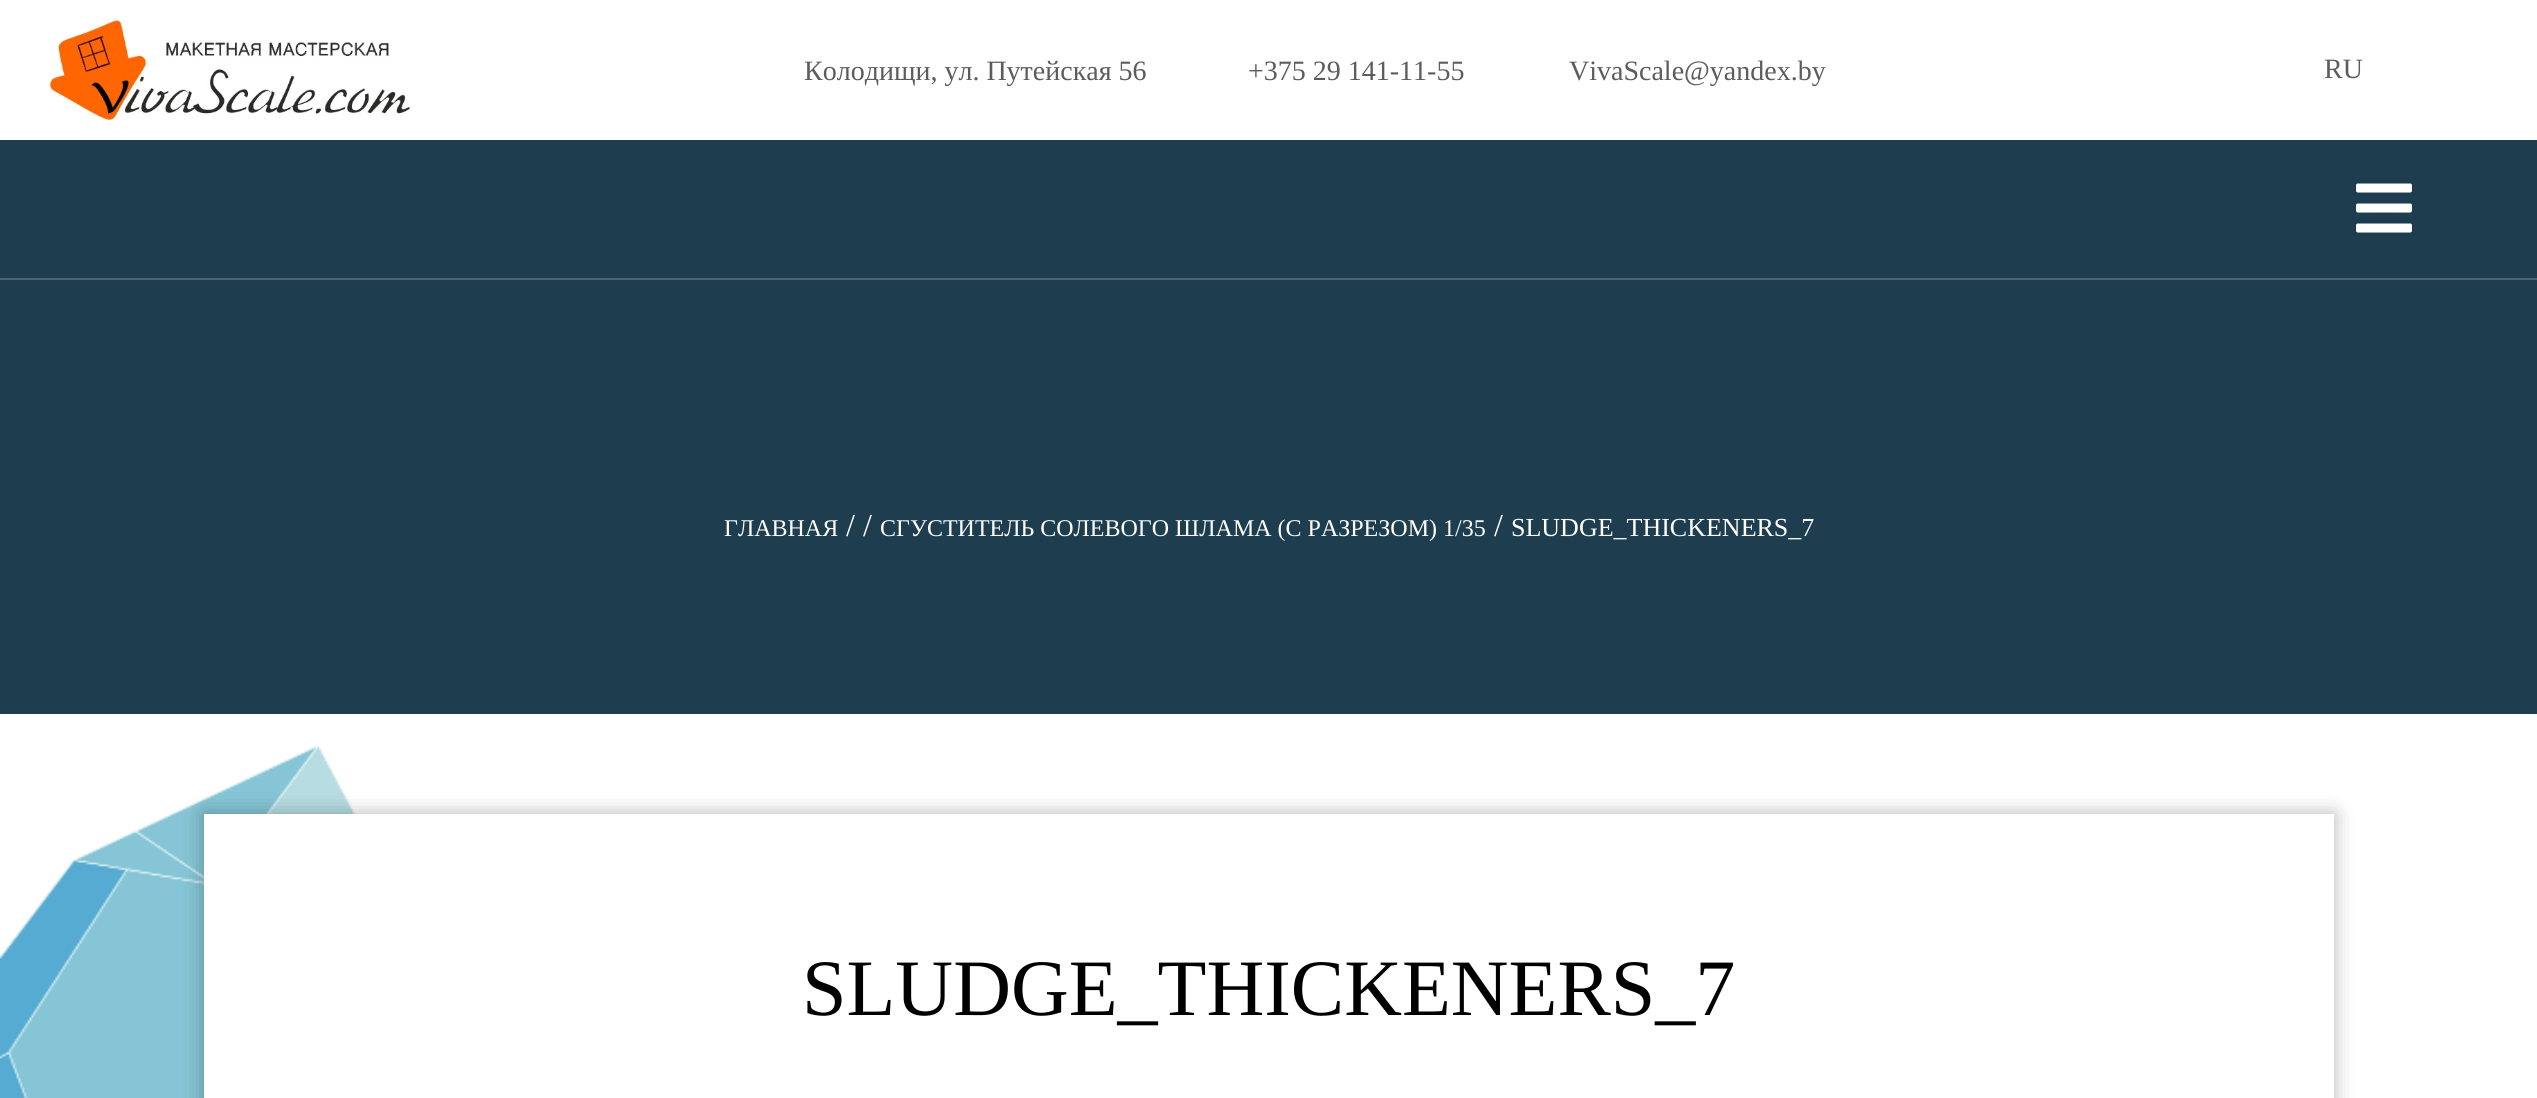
import math
import cairo


def use_color(cr, r, g, b):
  cr.set_source_rgb(r / 255, g / 255, b / 255)

def text(cr, x, y, s, family, size, color, bold=False, italic=False):
  cr.select_font_face(family, cairo.FONT_SLANT_ITALIC if italic else cairo.FONT_SLANT_NORMAL, cairo.FONT_WEIGHT_BOLD if bold else cairo.FONT_WEIGHT_NORMAL)
  cr.set_font_size(size)
  use_color(cr, *color)
  cr.move_to(x, y)
  cr.show_text(s)

def box(cr, x, y, w, h, *color):
  use_color(cr, *color)
  cr.rectangle(x, y, w, h)
  cr.fill()

def round_rect(cr, x, y, w, h, r):
  cr.new_sub_path()
  for i, (u, v) in enumerate([(x + w - r, y + h - r), (x + r, y + h - r), (x + r, y + r), (x + w - r, y + r)]):
    cr.arc(u, v, r, i * math.pi / 2, (i + 1) * math.pi / 2)
  cr.close_path()

def shadow(cr, x, y, w, h, r, blur, alpha):
  cr.push_group_with_content(cairo.CONTENT_ALPHA)
  cr.set_operator(cairo.OPERATOR_SOURCE)
  for i in range(15, -16, -2):
    e = blur * i / 6
    if min(w, h) + 2 * e > 0:
      cr.set_source_rgba(0, 0, 0, alpha * math.erfc((i - 1) / 8.5) / 2)
      round_rect(cr, x - e, y - e, w + 2 * e, h + 2 * e, max(0, min(r + e + blur * .6, min(w, h) / 2 + e)))
      cr.fill()
  cr.mask(cr.pop_group())

def picture(cr, path, x, y, w, h):
  cr.save()
  cr.set_source_surface(cairo.ImageSurface.create_from_png(path), x, y)
  cr.rectangle(x, y, w, h)
  cr.fill()
  cr.restore()

def draw(cr):
  use_color(cr, 255, 255, 255)
  cr.paint()
  picture(cr, "img_01.png", 50, 20, 360, 100)
  box(cr, 0, 140, 2537, 574, 30, 62, 80)
  box(cr, 0, 278, 2537, 2, 75, 101, 115)
  picture(cr, "img_02.png", 2356, 183, 56, 50)
  picture(cr, "img_03.png", 0, 744, 357, 354)
  use_color(cr, 0, 0, 0)
  shadow(cr, 204, 814, 2130, 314, 0, 10, 0.3)
  box(cr, 204, 814, 2130, 284, 255, 255, 255)
  text(cr, 804, 80, "Колодищи, ул. Путейская 56", "Liberation Serif", 28, (92, 92, 92))
  text(cr, 1248, 80, "+375 29 141-11-55", "Liberation Serif", 28, (92, 92, 92))
  text(cr, 1569, 80, "VivaScale@yandex.by", "Liberation Serif", 28, (92, 92, 92))
  text(cr, 2324, 78, "RU", "Liberation Serif", 28, (92, 92, 92))
  text(cr, 724, 536, "ГЛАВНАЯ", "Liberation Serif", 24, (255, 255, 255))
  text(cr, 846, 536, "/ /", "Liberation Serif", 32, (255, 255, 255))
  text(cr, 880, 536, "СГУСТИТЕЛЬ СОЛЕВОГО ШЛАМА (С РАЗРЕЗОМ) 1/35", "Liberation Serif", 24, (255, 255, 255))
  text(cr, 1494, 536, "/", "Liberation Serif", 32, (255, 255, 255))
  text(cr, 1511, 536, "SLUDGE_THICKENERS_7", "Liberation Serif", 26, (255, 255, 255))
  text(cr, 802, 1015, "SLUDGE_THICKENERS_7", "Liberation Serif", 80, (0, 0, 0))


surface = cairo.ImageSurface(cairo.FORMAT_RGB24, 2537, 1098)
cr = cairo.Context(surface)
options = cairo.FontOptions()
options.set_hint_metrics(cairo.HINT_METRICS_OFF)
options.set_hint_style(cairo.HINT_STYLE_NONE)
cr.set_font_options(options)
cr.set_miter_limit(4)
draw(cr)
surface.write_to_png("out.png")
